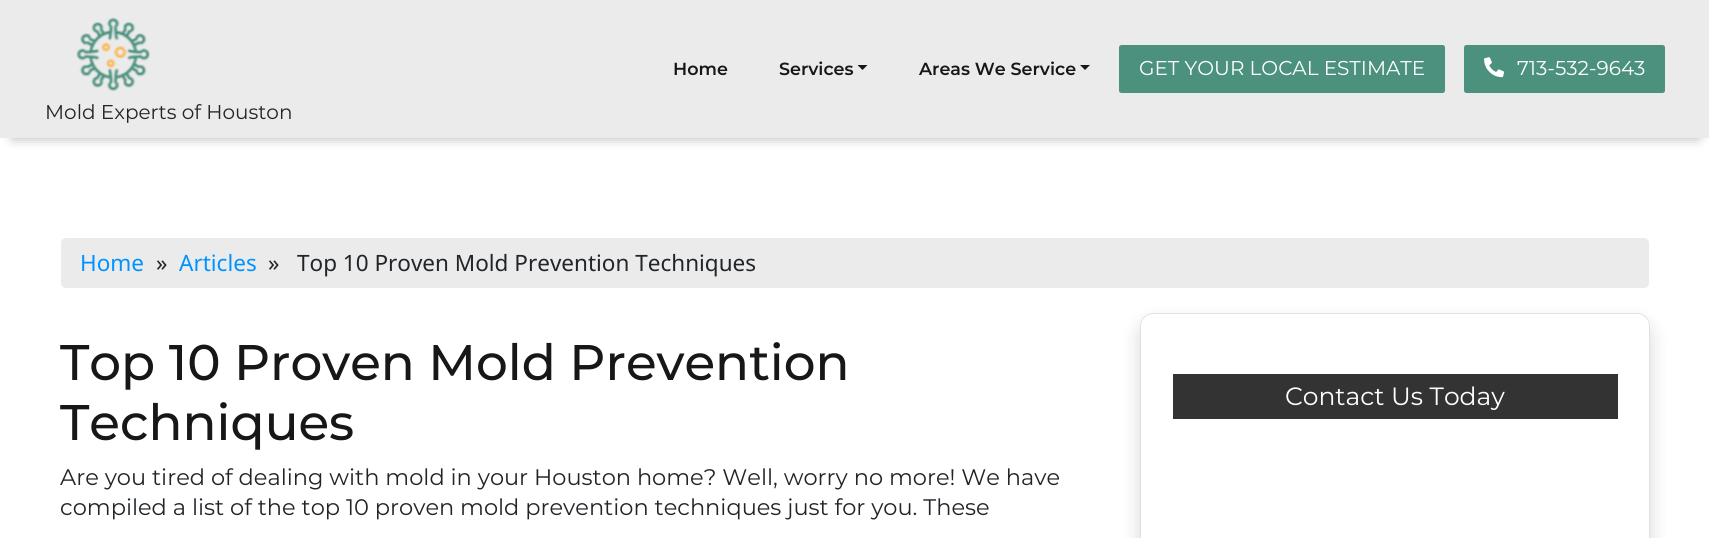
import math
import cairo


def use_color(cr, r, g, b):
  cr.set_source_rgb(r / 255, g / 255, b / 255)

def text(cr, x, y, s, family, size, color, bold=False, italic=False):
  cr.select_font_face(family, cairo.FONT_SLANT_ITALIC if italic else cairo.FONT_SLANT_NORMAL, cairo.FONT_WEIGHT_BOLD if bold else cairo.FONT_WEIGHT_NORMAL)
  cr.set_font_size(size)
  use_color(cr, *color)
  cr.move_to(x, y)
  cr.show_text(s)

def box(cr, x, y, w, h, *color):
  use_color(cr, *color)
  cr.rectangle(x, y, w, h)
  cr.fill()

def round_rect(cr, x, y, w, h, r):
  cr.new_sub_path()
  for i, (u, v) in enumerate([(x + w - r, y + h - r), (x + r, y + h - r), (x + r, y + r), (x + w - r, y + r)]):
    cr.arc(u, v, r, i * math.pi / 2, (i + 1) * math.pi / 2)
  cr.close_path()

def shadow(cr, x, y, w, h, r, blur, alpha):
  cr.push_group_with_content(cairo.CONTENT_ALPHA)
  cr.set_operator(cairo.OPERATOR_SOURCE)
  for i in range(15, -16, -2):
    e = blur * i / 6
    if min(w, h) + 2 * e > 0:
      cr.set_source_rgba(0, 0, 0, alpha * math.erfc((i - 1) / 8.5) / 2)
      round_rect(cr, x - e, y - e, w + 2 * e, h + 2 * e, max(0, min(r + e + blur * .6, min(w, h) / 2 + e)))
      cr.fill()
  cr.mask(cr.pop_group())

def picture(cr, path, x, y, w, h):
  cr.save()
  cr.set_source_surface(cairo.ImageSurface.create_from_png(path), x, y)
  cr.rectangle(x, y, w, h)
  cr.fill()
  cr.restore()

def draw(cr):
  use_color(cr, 255, 255, 255)
  cr.paint()
  use_color(cr, 17, 17, 17)
  shadow(cr, 13, 25, 1685, 113, 0, 6, 0.33)
  box(cr, 0, 0, 1709, 138, 235, 235, 235)
  use_color(cr, 24, 22, 23)
  cr.new_path()
  cr.move_to(857.5, 65)
  cr.line_to(867.5, 65)
  cr.line_to(862.5, 70)
  cr.close_path()
  cr.fill()
  cr.new_path()
  cr.move_to(1080, 65)
  cr.line_to(1090, 65)
  cr.line_to(1085, 70)
  cr.close_path()
  cr.fill()
  use_color(cr, 75, 145, 125)
  round_rect(cr, 1119, 45, 326, 48, 2.5)
  cr.fill()
  round_rect(cr, 1464, 45, 201, 48, 2.5)
  cr.fill()
  picture(cr, "img_01.png", 1484, 57, 21, 21)
  picture(cr, "img_02.png", 76, 17, 74, 75)
  use_color(cr, 235, 235, 235)
  round_rect(cr, 61, 238, 1588, 50, 5)
  cr.fill()
  cr.save()
  cr.set_fill_rule(cairo.FILL_RULE_EVEN_ODD)
  cr.new_path()
  cr.move_to(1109, 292)
  cr.line_to(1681, 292)
  cr.line_to(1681, 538)
  cr.line_to(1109, 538)
  cr.close_path()
  cr.move_to(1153, 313)
  cr.line_to(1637, 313)
  cr.curve_to(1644, 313, 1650, 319, 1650, 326)
  cr.line_to(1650, 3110)
  cr.curve_to(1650, 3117, 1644, 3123, 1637, 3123)
  cr.line_to(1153, 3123)
  cr.curve_to(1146, 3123, 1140, 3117, 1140, 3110)
  cr.line_to(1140, 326)
  cr.curve_to(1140, 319, 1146, 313, 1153, 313)
  cr.close_path()
  cr.clip()
  use_color(cr, 0, 0, 0)
  shadow(cr, 1140, 323, 510, 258, 13, 10, 0.15)
  cr.restore()
  round_rect(cr, 1140.5, 313.5, 509, 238, 12.5)
  use_color(cr, 222, 226, 230)
  cr.set_line_width(1)
  cr.stroke()
  box(cr, 1173, 374, 445, 45, 51, 51, 51)
  text(cr, 673, 75, "Home", "Montserrat SemiBold", 17.5, (24, 22, 23))
  text(cr, 779, 75, "Services", "Montserrat SemiBold", 17.5, (24, 22, 23))
  text(cr, 919, 75, "Areas We Service", "Montserrat SemiBold", 17.5, (24, 22, 23))
  text(cr, 1139, 75, "GET YOUR LOCAL ESTIMATE", "Montserrat", 20, (255, 255, 255))
  text(cr, 1517, 75, "713-532-9643", "Montserrat", 20, (255, 255, 255))
  text(cr, 45, 119, "Mold Experts of Houston", "Montserrat", 20, (33, 37, 41))
  text(cr, 80, 271, "Home", "Noto Sans", 22.5, (0, 147, 255))
  text(cr, 156, 271, "»", "Noto Sans", 22.5, (33, 37, 41))
  text(cr, 179, 271, "Articles", "Noto Sans", 22.5, (0, 147, 255))
  text(cr, 268, 271, "»   Top 10 Proven Mold Prevention Techniques", "Noto Sans", 22.5, (33, 37, 41))
  text(cr, 60, 380, "Top 10 Proven Mold Prevention", "Montserrat Medium", 50, (24, 22, 23))
  text(cr, 60, 440, "Techniques", "Montserrat Medium", 50, (24, 22, 23))
  text(cr, 60, 485, "Are you tired of dealing with mold in your Houston home? Well, worry no more! We have", "Montserrat", 22.5, (33, 37, 41))
  text(cr, 60, 515, "compiled a list of the top 10 proven mold prevention techniques just for you. These", "Montserrat", 22.5, (33, 37, 41))
  text(cr, 1285, 405, "Contact Us Today", "Montserrat", 25, (255, 255, 255))


surface = cairo.ImageSurface(cairo.FORMAT_RGB24, 1709, 538)
cr = cairo.Context(surface)
options = cairo.FontOptions()
options.set_hint_metrics(cairo.HINT_METRICS_OFF)
options.set_hint_style(cairo.HINT_STYLE_NONE)
cr.set_font_options(options)
cr.set_miter_limit(4)
draw(cr)
surface.write_to_png("out.png")
